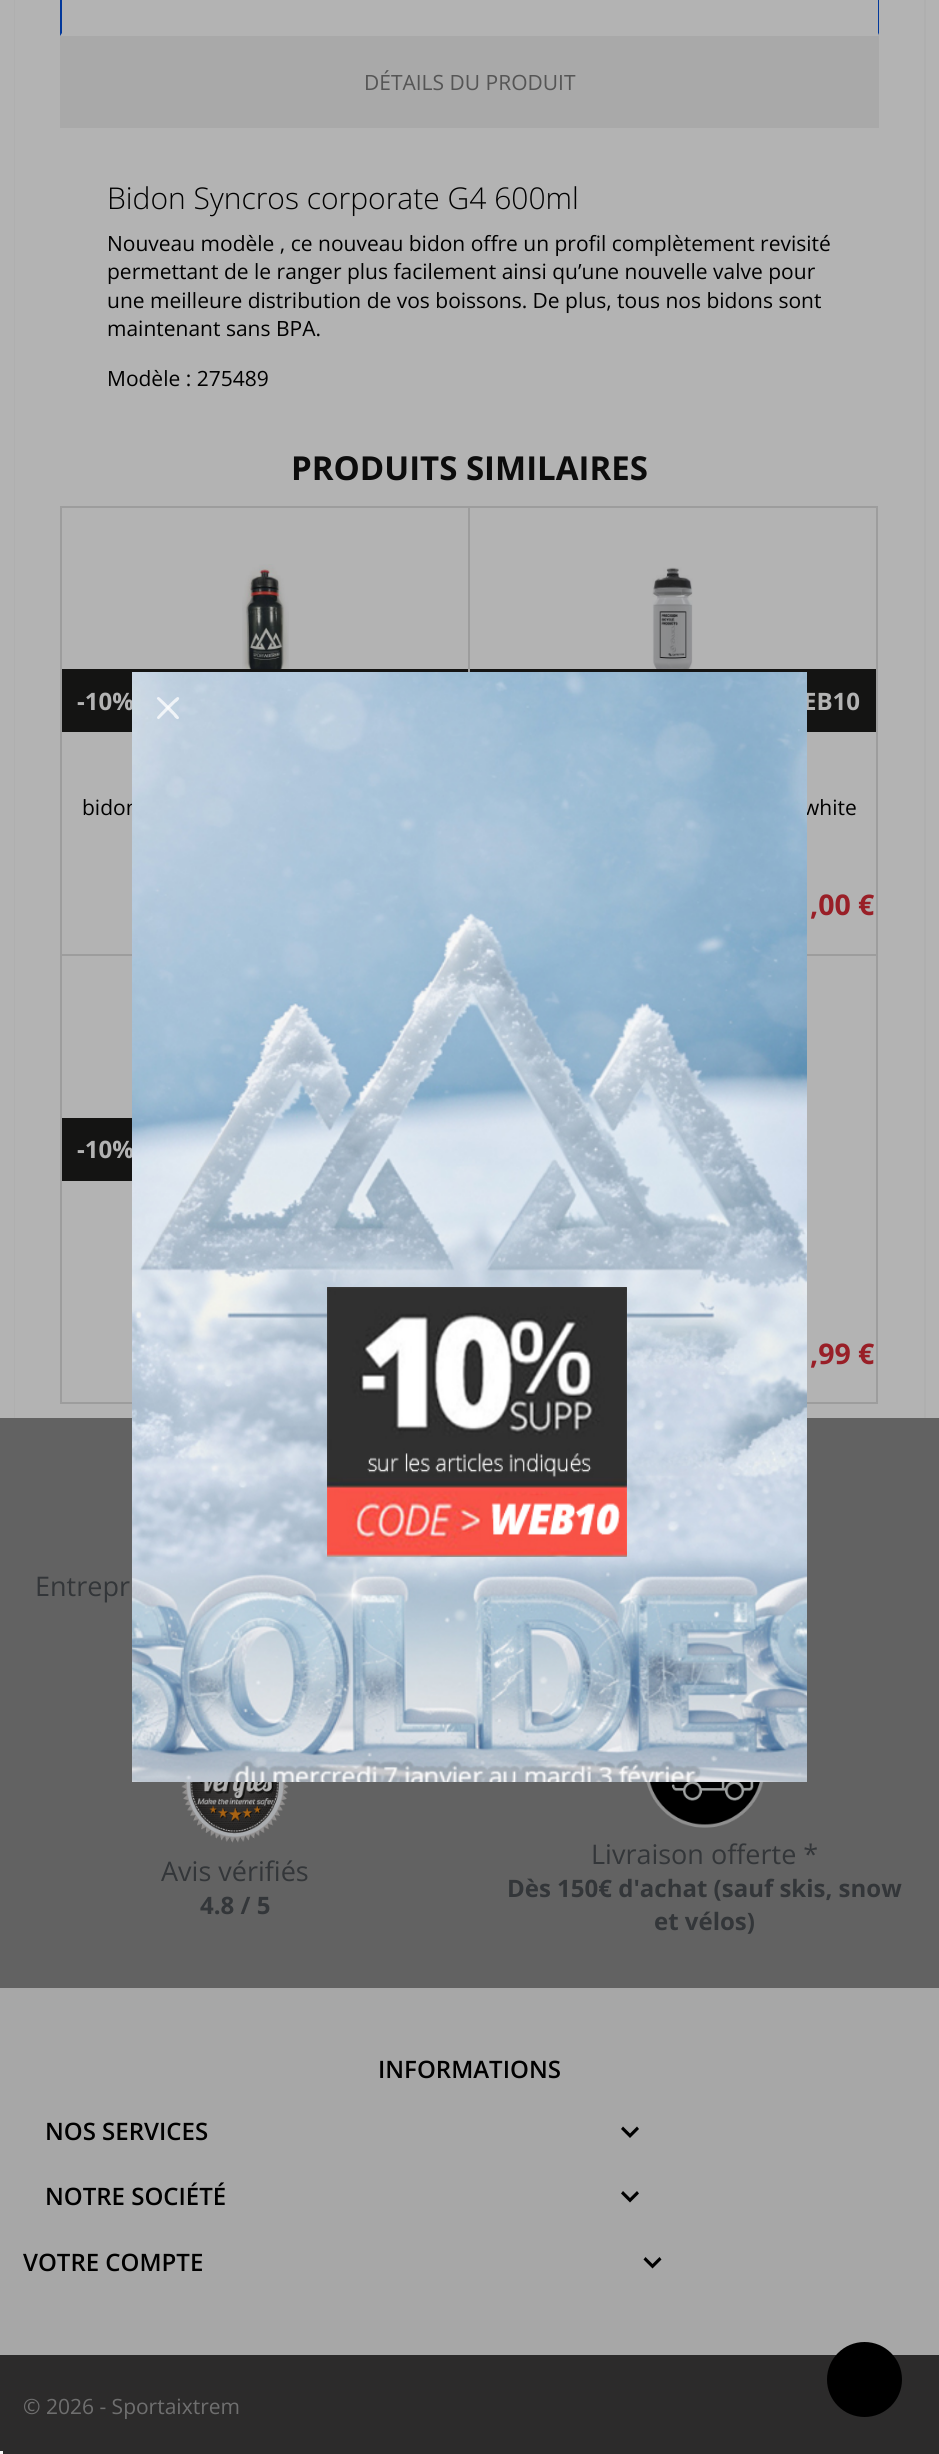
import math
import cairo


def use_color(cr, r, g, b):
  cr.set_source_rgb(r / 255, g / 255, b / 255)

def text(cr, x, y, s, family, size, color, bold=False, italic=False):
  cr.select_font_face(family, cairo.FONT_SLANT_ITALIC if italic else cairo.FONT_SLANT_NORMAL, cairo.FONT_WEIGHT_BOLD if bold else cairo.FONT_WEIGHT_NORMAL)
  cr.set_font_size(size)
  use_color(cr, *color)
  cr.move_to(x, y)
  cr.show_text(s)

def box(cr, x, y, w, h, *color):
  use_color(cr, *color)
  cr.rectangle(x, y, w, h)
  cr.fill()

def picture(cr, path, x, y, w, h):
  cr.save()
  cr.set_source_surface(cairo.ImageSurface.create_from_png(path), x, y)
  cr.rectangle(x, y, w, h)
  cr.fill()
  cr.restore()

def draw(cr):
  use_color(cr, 179, 179, 179)
  cr.paint()
  cr.rectangle(15, -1, 910, 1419)
  use_color(cr, 175, 175, 175)
  cr.stroke()
  box(cr, 15, 0, 909, 1418, 179, 179, 179)
  box(cr, 60, 35, 819, 93, 169, 169, 169)
  use_color(cr, 2, 56, 155)
  cr.new_path()
  cr.move_to(879, -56)
  cr.line_to(879, 36)
  cr.line_to(878, 33)
  cr.line_to(878, -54)
  cr.close_path()
  cr.fill()
  use_color(cr, 179, 179, 179)
  cr.new_path()
  cr.move_to(879, 36)
  cr.line_to(60, 36)
  cr.line_to(62, 33)
  cr.line_to(878, 33)
  cr.close_path()
  cr.fill()
  use_color(cr, 2, 56, 155)
  cr.new_path()
  cr.move_to(60, 36)
  cr.line_to(60, -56)
  cr.line_to(62, -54)
  cr.line_to(62, 33)
  cr.close_path()
  cr.fill()
  cr.rectangle(61, 507, 408, 448)
  use_color(cr, 157, 157, 157)
  cr.stroke()
  picture(cr, "img_01.png", 242, 564, 47, 105)
  box(cr, 62, 669, 406, 63, 20, 20, 19)
  cr.rectangle(469, 507, 408, 448)
  use_color(cr, 157, 157, 157)
  cr.stroke()
  picture(cr, "img_02.png", 652, 567, 41, 102)
  box(cr, 470, 669, 406, 63, 20, 20, 19)
  cr.rectangle(61, 955, 408, 448)
  use_color(cr, 157, 157, 157)
  cr.stroke()
  box(cr, 62, 1118, 70, 63, 20, 20, 19)
  cr.rectangle(469, 955, 408, 448)
  use_color(cr, 157, 157, 157)
  cr.stroke()
  box(cr, 0, 1418, 939, 570, 98, 98, 98)
  picture(cr, "img_03.png", 181, 1782, 108, 61)
  picture(cr, "img_04.png", 646, 1782, 118, 46)
  box(cr, 0, 1988, 939, 367, 167, 167, 167)
  use_color(cr, 0, 0, 0)
  cr.new_path()
  cr.move_to(623, 2126.5)
  cr.line_to(630, 2133.5)
  cr.line_to(637, 2126.5)
  cr.line_to(639, 2129)
  cr.line_to(630, 2138)
  cr.line_to(621, 2129)
  cr.close_path()
  cr.fill()
  cr.new_path()
  cr.move_to(623, 2191)
  cr.line_to(630, 2198)
  cr.line_to(637, 2191)
  cr.line_to(639, 2193.5)
  cr.line_to(630, 2202.5)
  cr.line_to(621, 2193.5)
  cr.close_path()
  cr.fill()
  cr.new_path()
  cr.move_to(645.5, 2257)
  cr.line_to(652.5, 2264)
  cr.line_to(659.5, 2257)
  cr.line_to(661.5, 2259.5)
  cr.line_to(652.5, 2268.5)
  cr.line_to(643.5, 2259.5)
  cr.close_path()
  cr.fill()
  box(cr, 0, 2355, 939, 99, 44, 43, 43)
  use_color(cr, 0, 0, 0)
  cr.arc(864.5, 2379.5, 37.5, 0, 2 * math.pi)
  cr.fill()
  box(cr, 0, 2451, 3, 3, 245, 245, 245)
  text(cr, 364, 90, "DÉTAILS DU PRODUIT", "Open Sans", 21, (85, 85, 85))
  text(cr, 107, 209, "Bidon Syncros corporate G4 600ml", "Open Sans Light", 30, (0, 0, 0))
  text(cr, 107, 251, "Nouveau modèle , ce nouveau bidon offre un profil complètement revisité", "Open Sans", 21, (0, 0, 0))
  text(cr, 107, 279, "permettant de le ranger plus facilement ainsi qu’une nouvelle valve pour", "Open Sans", 21, (0, 0, 0))
  text(cr, 107, 308, "une meilleure distribution de vos boissons. De plus, tous nos bidons sont", "Open Sans", 21, (0, 0, 0))
  text(cr, 107, 336, "maintenant sans BPA.", "Open Sans", 21, (0, 0, 0))
  text(cr, 107, 386, "Modèle : 275489", "Open Sans", 21, (0, 0, 0))
  text(cr, 291, 480, "PRODUITS SIMILAIRES", "Open Sans", 33, (12, 12, 12), bold=True)
  text(cr, 77, 710, "-10%", "Open Sans", 24, (179, 179, 179), bold=True)
  text(cr, 82, 815, "bidon", "Open Sans", 21, (0, 0, 0))
  text(cr, 803, 710, "EB10", "Open Sans", 24, (179, 179, 179), bold=True)
  text(cr, 803, 815, "white", "Open Sans", 21, (0, 0, 0))
  text(cr, 810, 915, ",00 €", "Open Sans", 28.5, (153, 31, 39), bold=True)
  text(cr, 77, 1158, "-10%", "Open Sans", 24, (179, 179, 179), bold=True)
  text(cr, 810, 1364, ",99 €", "Open Sans", 28.5, (153, 31, 39), bold=True)
  text(cr, 35, 1596, "Entrepr", "Open Sans", 27, (51, 54, 57))
  text(cr, 161, 1881, "Avis vérifiés", "Open Sans", 27, (51, 54, 57))
  text(cr, 200, 1914, "4.8 / 5", "Open Sans", 24, (51, 54, 57), bold=True)
  text(cr, 591, 1864, "Livraison offerte *", "Open Sans", 27, (51, 54, 57))
  text(cr, 507, 1897, "Dès 150€ d'achat (sauf skis, snow", "Open Sans", 24, (51, 54, 57), bold=True)
  text(cr, 654, 1930, "et vélos)", "Open Sans", 24, (51, 54, 57), bold=True)
  text(cr, 378, 2078, "INFORMATIONS", "Open Sans SemiBold", 24, (0, 0, 0))
  text(cr, 45, 2140, "NOS SERVICES", "Open Sans SemiBold", 24, (0, 0, 0))
  text(cr, 45, 2205, "NOTRE SOCIÉTÉ", "Open Sans SemiBold", 24, (0, 0, 0))
  text(cr, 23, 2271, "VOTRE COMPTE", "Open Sans SemiBold", 24, (0, 0, 0))
  text(cr, 23, 2414, "© 2026 - Sportaixtrem", "Open Sans", 21, (111, 111, 111))
  picture(cr, "img_05.png", 132, 672, 675, 1110)
  picture(cr, "img_06.png", 327, 1287, 300, 270)
  cr.set_source_rgba(1, 1, 1, 0.75)
  cr.new_path()
  cr.move_to(159.5, 697.5)
  cr.curve_to(162, 699.5, 179, 716, 179, 717.5)
  cr.line_to(178.5, 719)
  cr.curve_to(176.5, 720, 173.5, 716, 173.5, 715.5)
  cr.line_to(157, 699)
  cr.curve_to(156.5, 698, 157.5, 697, 158.5, 697)
  cr.close_path()
  cr.fill()
  cr.new_path()
  cr.move_to(157.5, 716.5)
  cr.curve_to(159.5, 714, 176, 697, 177.5, 697)
  cr.line_to(179, 697.5)
  cr.curve_to(180, 699.5, 176, 702.5, 175.5, 702.5)
  cr.line_to(159, 719)
  cr.curve_to(158, 719.5, 157, 718.5, 157, 717.5)
  cr.close_path()
  cr.fill()


surface = cairo.ImageSurface(cairo.FORMAT_RGB24, 939, 2454)
cr = cairo.Context(surface)
options = cairo.FontOptions()
options.set_hint_metrics(cairo.HINT_METRICS_OFF)
options.set_hint_style(cairo.HINT_STYLE_NONE)
cr.set_font_options(options)
cr.set_miter_limit(4)
draw(cr)
surface.write_to_png("out.png")
